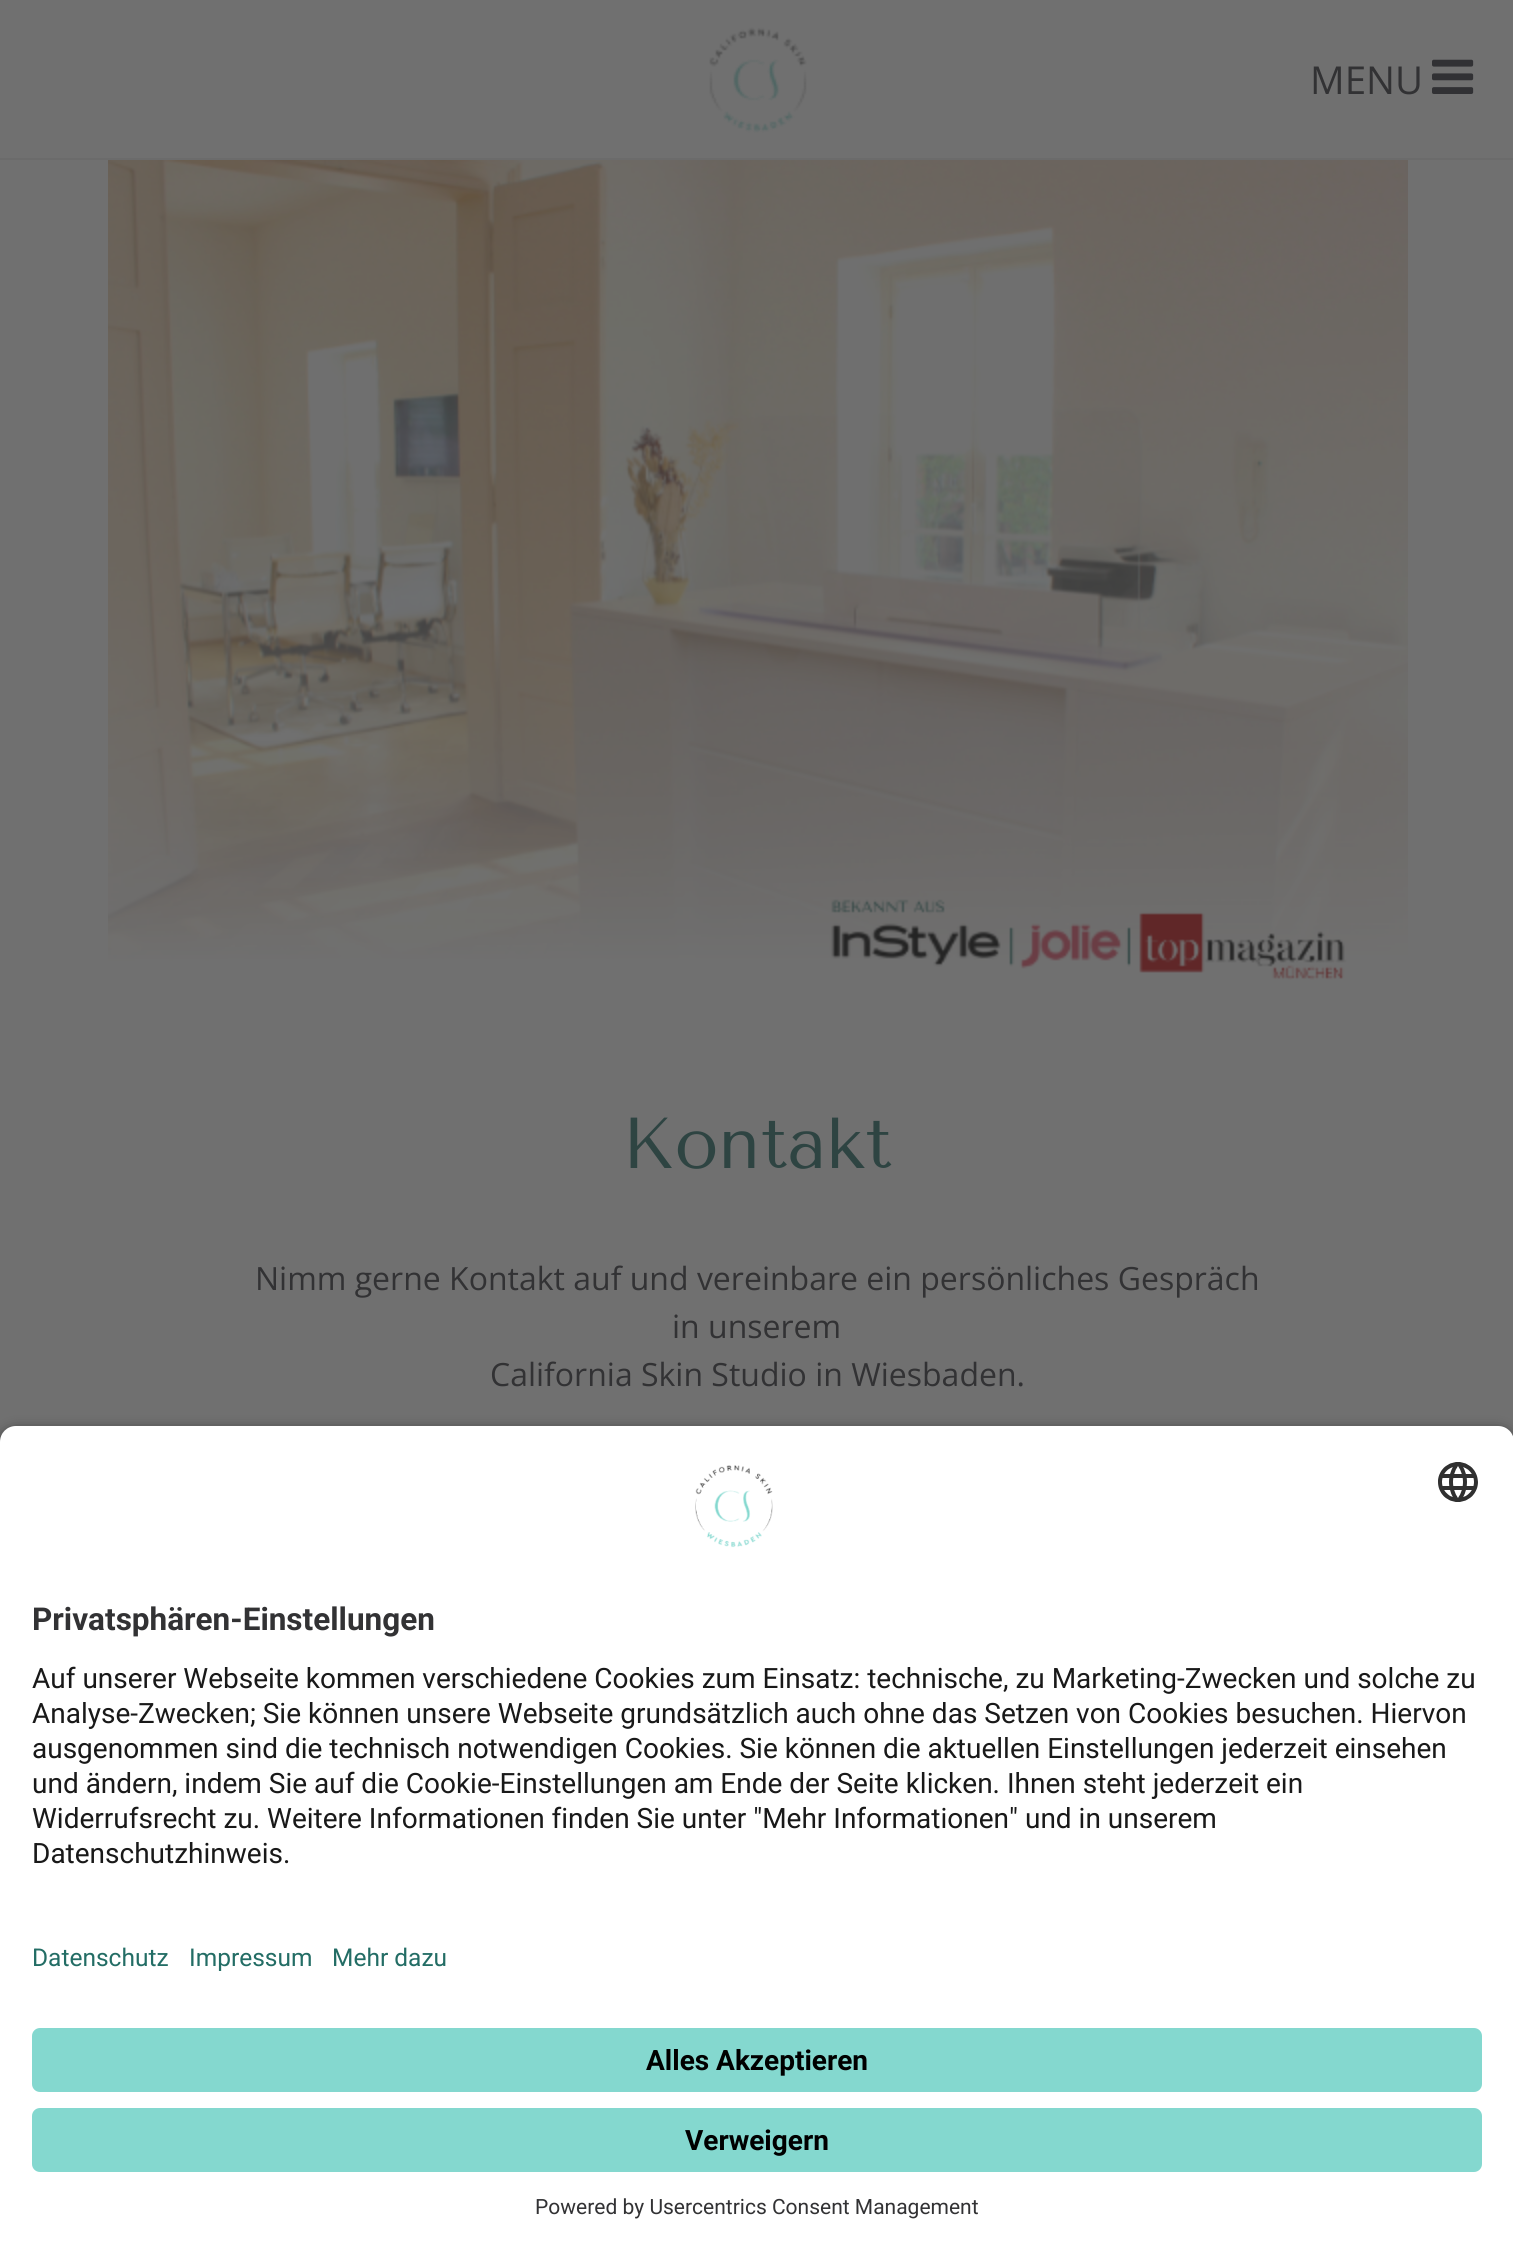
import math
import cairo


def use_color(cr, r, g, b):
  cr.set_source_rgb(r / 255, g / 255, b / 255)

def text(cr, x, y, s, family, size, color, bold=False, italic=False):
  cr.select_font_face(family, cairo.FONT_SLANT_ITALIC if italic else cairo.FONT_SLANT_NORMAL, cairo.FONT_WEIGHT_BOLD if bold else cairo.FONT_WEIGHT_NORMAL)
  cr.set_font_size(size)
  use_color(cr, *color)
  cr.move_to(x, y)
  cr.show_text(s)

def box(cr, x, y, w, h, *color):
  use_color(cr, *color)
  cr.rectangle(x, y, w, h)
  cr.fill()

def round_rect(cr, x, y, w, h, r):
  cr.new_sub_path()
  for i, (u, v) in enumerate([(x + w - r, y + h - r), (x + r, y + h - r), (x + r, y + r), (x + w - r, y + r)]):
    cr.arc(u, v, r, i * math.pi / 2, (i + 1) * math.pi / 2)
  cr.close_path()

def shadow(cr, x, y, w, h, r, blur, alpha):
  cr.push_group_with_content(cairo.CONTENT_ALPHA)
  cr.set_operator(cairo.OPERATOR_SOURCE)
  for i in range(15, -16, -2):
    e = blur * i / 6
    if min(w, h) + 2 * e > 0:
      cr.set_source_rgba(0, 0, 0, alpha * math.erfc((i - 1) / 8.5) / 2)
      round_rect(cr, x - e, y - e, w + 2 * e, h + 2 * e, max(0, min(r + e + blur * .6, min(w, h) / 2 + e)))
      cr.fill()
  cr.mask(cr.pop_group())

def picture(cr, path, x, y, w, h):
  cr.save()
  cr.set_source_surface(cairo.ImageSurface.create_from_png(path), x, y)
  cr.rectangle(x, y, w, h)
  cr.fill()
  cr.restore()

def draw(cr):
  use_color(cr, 112, 112, 112)
  cr.paint()
  box(cr, 0, 158, 1513, 2, 107, 107, 107)
  picture(cr, "img_01.png", 709, 27, 98, 106)
  picture(cr, "img_02.png", 1432, 59, 42, 35)
  picture(cr, "img_03.png", 108, 160, 1300, 820)
  use_color(cr, 0, 0, 0)
  shadow(cr, 0, 1432, 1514, 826, 16, 7, 0.8)
  use_color(cr, 255, 255, 255)
  cr.new_path()
  cr.move_to(16, 1426)
  cr.line_to(1498, 1426)
  cr.curve_to(1507, 1426, 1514, 1433, 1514, 1442)
  cr.line_to(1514, 1912)
  cr.line_to(0, 1912)
  cr.line_to(0, 1442)
  cr.curve_to(0, 1433, 7, 1426, 16, 1426)
  cr.close_path()
  cr.fill()
  picture(cr, "img_04.png", 695, 1465, 78, 83)
  picture(cr, "img_05.png", 1438, 1462, 40, 40)
  box(cr, 0, 1912, 1513, 340, 255, 255, 255)
  use_color(cr, 132, 216, 207)
  round_rect(cr, 32, 2028, 1450, 64, 8)
  cr.fill()
  round_rect(cr, 32, 2108, 1450, 64, 8)
  cr.fill()
  text(cr, 1310, 94, "MENU", "Open Sans", 38.5, (50, 50, 52))
  text(cr, 622, 1168, "Kontakt", "Tenor Sans", 72, (46, 68, 66))
  text(cr, 255, 1290, "Nimm gerne Kontakt auf und vereinbare ein persönliches Gespräch", "Open Sans", 32, (50, 50, 52))
  text(cr, 672, 1338, "in unserem", "Open Sans", 32, (50, 50, 52))
  text(cr, 490, 1386, "California Skin Studio in Wiesbaden.", "Open Sans", 32, (50, 50, 52))
  text(cr, 32, 1630, "Privatsphären-Einstellungen", "Roboto", 31.5, (50, 50, 52), bold=True)
  text(cr, 32, 1688, "Auf unserer Webseite kommen verschiedene Cookies zum Einsatz: technische, zu Marketing-Zwecken und solche zu", "Roboto", 28, (25, 25, 25))
  text(cr, 32, 1723, "Analyse-Zwecken; Sie können unsere Webseite grundsätzlich auch ohne das Setzen von Cookies besuchen. Hiervon", "Roboto", 28, (25, 25, 25))
  text(cr, 32, 1758, "ausgenommen sind die technisch notwendigen Cookies. Sie können die aktuellen Einstellungen jederzeit einsehen", "Roboto", 28, (25, 25, 25))
  text(cr, 32, 1793, "und ändern, indem Sie auf die Cookie-Einstellungen am Ende der Seite klicken. Ihnen steht jederzeit ein", "Roboto", 28, (25, 25, 25))
  text(cr, 32, 1828, "Widerrufsrecht zu. Weitere Informationen finden Sie unter \"Mehr Informationen\" und in unserem", "Roboto", 28, (25, 25, 25))
  text(cr, 32, 1863, "Datenschutzhinweis.", "Roboto", 28, (25, 25, 25))
  text(cr, 32, 1966, "Datenschutz", "Roboto", 24.5, (35, 109, 101))
  text(cr, 189, 1966, "Impressum", "Roboto", 24.5, (35, 109, 101))
  text(cr, 332, 1966, "Mehr dazu", "Roboto", 24.5, (35, 109, 101))
  text(cr, 646, 2070, "Alles Akzeptieren", "Roboto", 28, (0, 0, 0), bold=True)
  text(cr, 685, 2150, "Verweigern", "Roboto", 28, (0, 0, 0), bold=True)
  text(cr, 535, 2214, "Powered by Usercentrics Consent Management", "Roboto", 21, (50, 50, 52))


surface = cairo.ImageSurface(cairo.FORMAT_RGB24, 1513, 2252)
cr = cairo.Context(surface)
options = cairo.FontOptions()
options.set_hint_metrics(cairo.HINT_METRICS_OFF)
options.set_hint_style(cairo.HINT_STYLE_NONE)
cr.set_font_options(options)
cr.set_miter_limit(4)
draw(cr)
surface.write_to_png("out.png")
